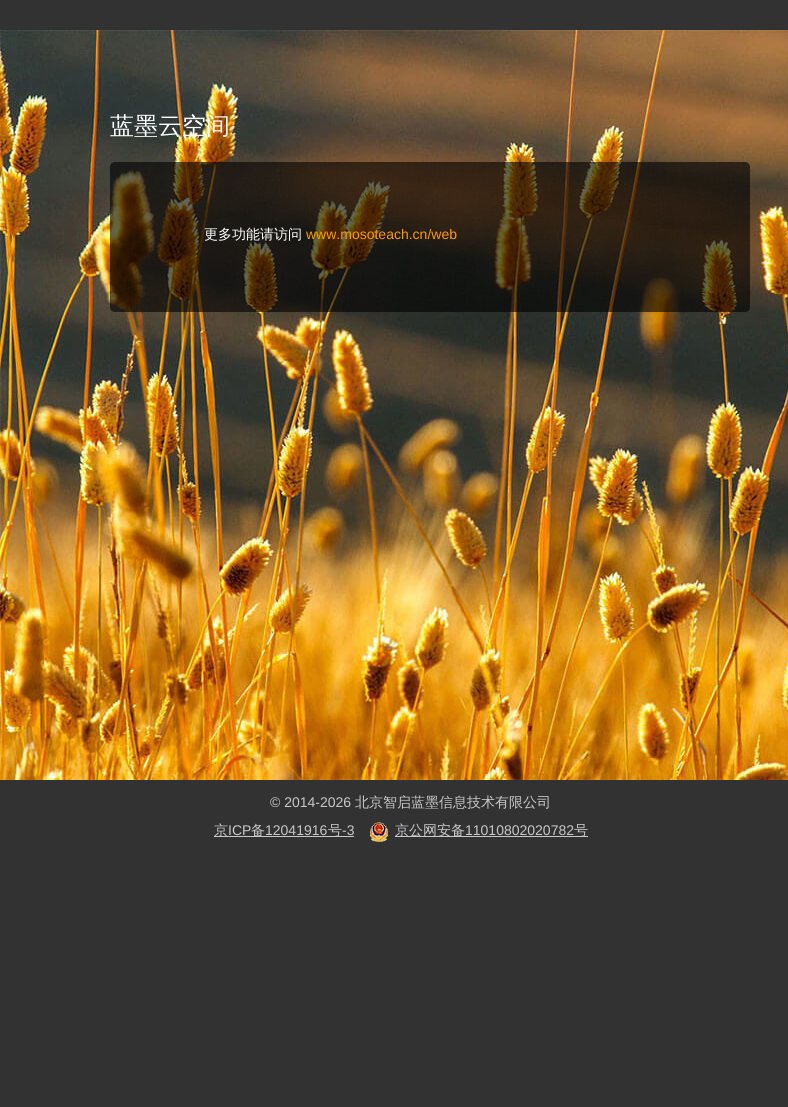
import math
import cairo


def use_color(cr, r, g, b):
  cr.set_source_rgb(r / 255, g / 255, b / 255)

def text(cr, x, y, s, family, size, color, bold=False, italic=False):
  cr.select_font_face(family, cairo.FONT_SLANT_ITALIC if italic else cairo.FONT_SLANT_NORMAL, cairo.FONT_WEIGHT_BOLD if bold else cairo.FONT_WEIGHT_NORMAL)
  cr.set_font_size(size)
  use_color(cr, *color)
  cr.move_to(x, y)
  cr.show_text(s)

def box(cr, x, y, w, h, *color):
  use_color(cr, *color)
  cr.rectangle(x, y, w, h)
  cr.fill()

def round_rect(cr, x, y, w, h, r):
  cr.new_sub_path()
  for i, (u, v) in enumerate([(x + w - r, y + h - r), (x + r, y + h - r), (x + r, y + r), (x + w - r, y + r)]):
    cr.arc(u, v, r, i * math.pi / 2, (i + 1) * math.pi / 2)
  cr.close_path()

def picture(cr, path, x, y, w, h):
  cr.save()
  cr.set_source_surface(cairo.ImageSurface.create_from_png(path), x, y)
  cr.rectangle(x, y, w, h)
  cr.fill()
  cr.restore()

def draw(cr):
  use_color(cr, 50, 50, 50)
  cr.paint()
  picture(cr, "img_01.png", 0, 30, 788, 750)
  cr.set_source_rgba(0, 0, 0, 0.6)
  round_rect(cr, 110, 162, 640, 150, 5)
  cr.fill()
  box(cr, 214, 836, 140, 1, 200, 200, 200)
  picture(cr, "img_02.png", 370, 822, 18, 20)
  box(cr, 395, 836, 193, 1, 200, 200, 200)
  text(cr, 110, 134, "蓝墨云空间", "WenQuanYi Zen Hei Medium", 24, (255, 255, 255))
  text(cr, 204, 239, "更多功能请访问", "WenQuanYi Zen Hei Medium", 14, (255, 255, 255))
  text(cr, 306, 239, "www.mosoteach.cn/web", "Liberation Sans", 14, (255, 153, 0))
  text(cr, 270, 807, "© 2014-2026", "Liberation Sans", 14, (200, 200, 200))
  text(cr, 355, 807, "北京智启蓝墨信息技术有限公司", "WenQuanYi Zen Hei Medium", 14, (200, 200, 200))
  text(cr, 214, 835, "京", "WenQuanYi Zen Hei Medium", 14, (200, 200, 200))
  text(cr, 228, 835, "ICP", "Liberation Sans", 14, (200, 200, 200))
  text(cr, 251, 835, "备", "WenQuanYi Zen Hei Medium", 14, (200, 200, 200))
  text(cr, 265, 835, "12041916", "Liberation Sans", 14, (200, 200, 200))
  text(cr, 328, 835, "号", "WenQuanYi Zen Hei Medium", 14, (200, 200, 200))
  text(cr, 342, 835, "-3", "Liberation Sans", 14, (200, 200, 200))
  text(cr, 395, 835, "京公网安备", "WenQuanYi Zen Hei Medium", 14, (200, 200, 200))
  text(cr, 465, 835, "11010802020782", "Liberation Sans", 14, (200, 200, 200))
  text(cr, 574, 835, "号", "WenQuanYi Zen Hei Medium", 14, (200, 200, 200))


surface = cairo.ImageSurface(cairo.FORMAT_RGB24, 788, 1107)
cr = cairo.Context(surface)
options = cairo.FontOptions()
options.set_hint_metrics(cairo.HINT_METRICS_OFF)
options.set_hint_style(cairo.HINT_STYLE_NONE)
cr.set_font_options(options)
cr.set_miter_limit(4)
draw(cr)
surface.write_to_png("out.png")
